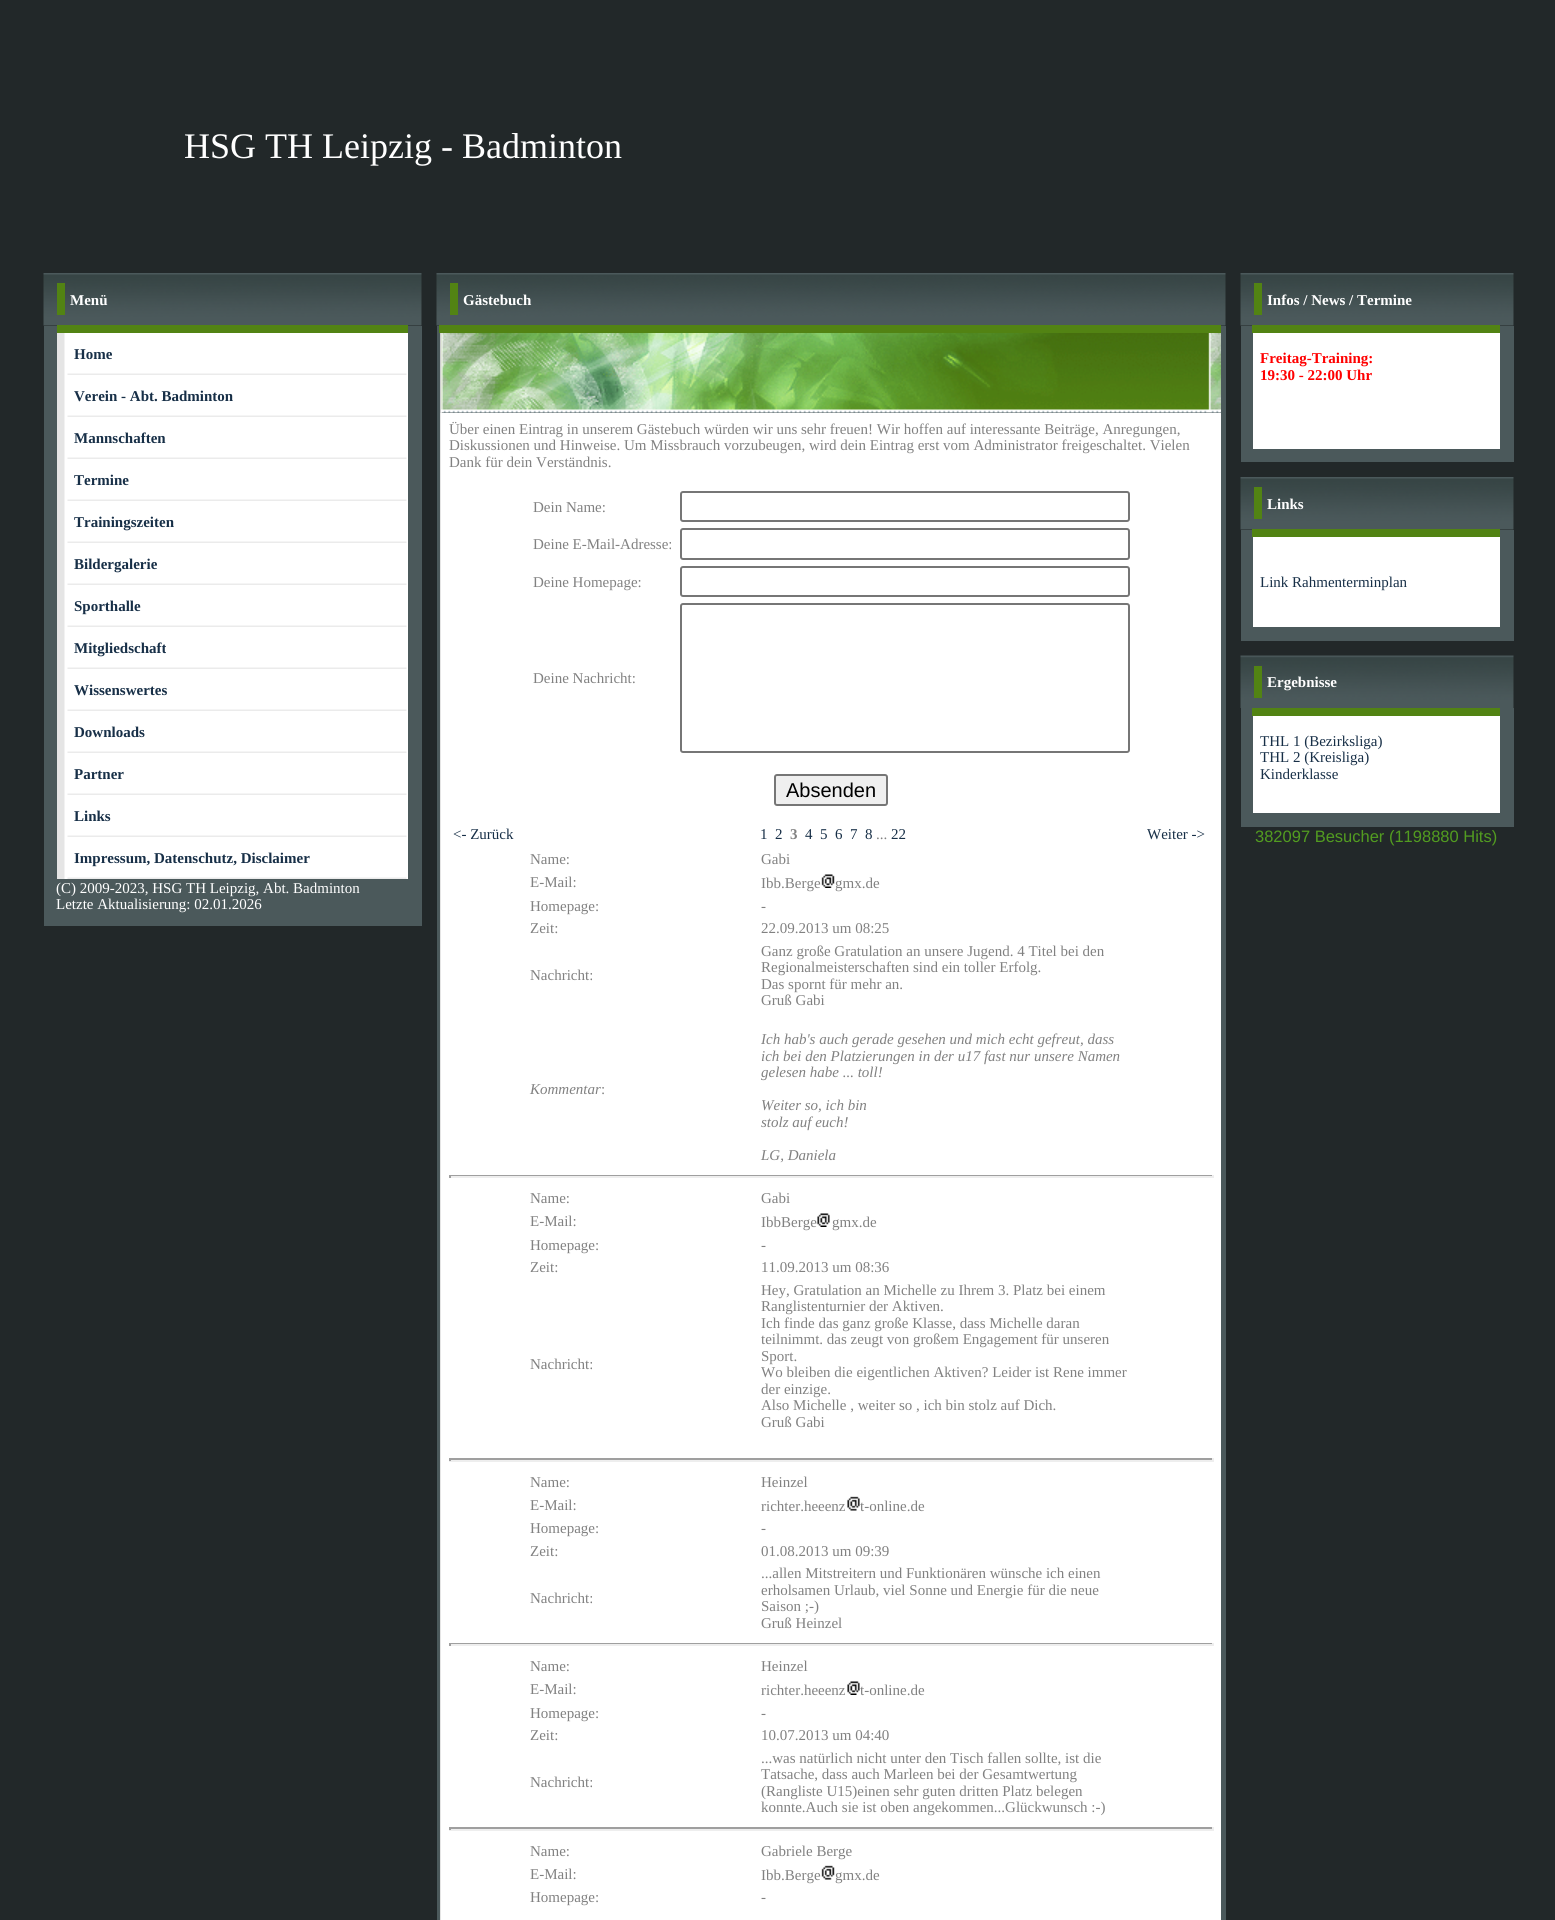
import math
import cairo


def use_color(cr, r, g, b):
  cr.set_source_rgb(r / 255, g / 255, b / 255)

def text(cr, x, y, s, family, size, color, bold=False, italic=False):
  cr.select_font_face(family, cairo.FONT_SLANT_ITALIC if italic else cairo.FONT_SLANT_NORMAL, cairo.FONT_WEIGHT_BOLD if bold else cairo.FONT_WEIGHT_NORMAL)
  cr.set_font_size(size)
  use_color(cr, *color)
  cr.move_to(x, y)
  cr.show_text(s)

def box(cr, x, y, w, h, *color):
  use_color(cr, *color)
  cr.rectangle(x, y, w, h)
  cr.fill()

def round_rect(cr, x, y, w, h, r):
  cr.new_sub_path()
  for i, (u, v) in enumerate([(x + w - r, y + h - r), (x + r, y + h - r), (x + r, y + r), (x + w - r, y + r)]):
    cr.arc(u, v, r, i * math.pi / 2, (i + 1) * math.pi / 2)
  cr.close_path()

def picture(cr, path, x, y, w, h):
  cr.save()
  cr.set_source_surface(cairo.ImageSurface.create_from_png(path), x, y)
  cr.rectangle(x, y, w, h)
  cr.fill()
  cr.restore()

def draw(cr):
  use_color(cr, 34, 40, 41)
  cr.paint()
  picture(cr, "img_01.png", 43, 273, 379, 53)
  box(cr, 57, 283, 8, 32, 82, 131, 19)
  box(cr, 44, 326, 378, 600, 75, 89, 91)
  box(cr, 57, 325, 351, 8, 82, 131, 19)
  picture(cr, "img_02.png", 57, 333, 351, 42)
  picture(cr, "img_02.png", 57, 375, 351, 42)
  picture(cr, "img_02.png", 57, 417, 351, 42)
  picture(cr, "img_02.png", 57, 459, 351, 42)
  picture(cr, "img_02.png", 57, 501, 351, 42)
  picture(cr, "img_02.png", 57, 543, 351, 42)
  picture(cr, "img_02.png", 57, 585, 351, 42)
  picture(cr, "img_02.png", 57, 627, 351, 42)
  picture(cr, "img_02.png", 57, 669, 351, 42)
  picture(cr, "img_02.png", 57, 711, 351, 42)
  picture(cr, "img_02.png", 57, 753, 351, 42)
  picture(cr, "img_02.png", 57, 795, 351, 42)
  picture(cr, "img_02.png", 57, 837, 351, 42)
  picture(cr, "img_03.png", 436, 273, 790, 53)
  box(cr, 450, 283, 8, 32, 82, 131, 19)
  box(cr, 437, 326, 789, 1594, 75, 89, 91)
  box(cr, 439, 325, 782, 8, 82, 131, 19)
  box(cr, 440, 333, 2, 80, 206, 206, 206)
  picture(cr, "img_04.png", 441, 333, 780, 80)
  box(cr, 440, 413, 1, 1507, 229, 229, 229)
  box(cr, 441, 413, 780, 1507, 255, 255, 255)
  round_rect(cr, 681, 492, 448, 29, 2)
  use_color(cr, 118, 118, 118)
  cr.stroke()
  round_rect(cr, 681, 529, 448, 30, 2)
  cr.stroke()
  round_rect(cr, 681, 567, 448, 29, 2)
  cr.stroke()
  round_rect(cr, 681, 604, 448, 148, 2)
  cr.stroke()
  use_color(cr, 239, 239, 239)
  round_rect(cr, 775, 775, 112, 30, 2)
  cr.fill_preserve()
  use_color(cr, 118, 118, 118)
  cr.stroke()
  picture(cr, "img_05.png", 821, 874, 14, 14)
  box(cr, 449, 1175, 765, 1, 159, 159, 159)
  box(cr, 1212, 1175, 2, 3, 238, 238, 238)
  box(cr, 449, 1176, 765, 2, 238, 238, 238)
  box(cr, 449, 1175, 2, 3, 159, 159, 159)
  picture(cr, "img_06.png", 817, 1213, 13, 14)
  box(cr, 449, 1458, 765, 2, 159, 159, 159)
  box(cr, 1212, 1458, 2, 3, 238, 238, 238)
  box(cr, 449, 1460, 765, 2, 238, 238, 238)
  box(cr, 449, 1458, 2, 3, 159, 159, 159)
  picture(cr, "img_07.png", 847, 1496, 13, 15)
  box(cr, 449, 1643, 765, 1, 159, 159, 159)
  box(cr, 1212, 1643, 2, 3, 238, 238, 238)
  box(cr, 449, 1644, 765, 2, 238, 238, 238)
  box(cr, 449, 1643, 2, 3, 159, 159, 159)
  picture(cr, "img_06.png", 847, 1681, 13, 14)
  box(cr, 449, 1827, 765, 2, 159, 159, 159)
  box(cr, 1212, 1827, 2, 3, 238, 238, 238)
  box(cr, 449, 1829, 765, 2, 238, 238, 238)
  box(cr, 449, 1827, 2, 3, 159, 159, 159)
  picture(cr, "img_08.png", 821, 1865, 14, 15)
  picture(cr, "img_09.png", 1240, 273, 274, 53)
  box(cr, 1254, 283, 8, 32, 82, 131, 19)
  box(cr, 1241, 326, 273, 136, 75, 89, 91)
  box(cr, 1252, 325, 248, 8, 82, 131, 19)
  box(cr, 1253, 333, 247, 116, 255, 255, 255)
  picture(cr, "img_09.png", 1240, 477, 274, 53)
  box(cr, 1254, 487, 8, 32, 82, 131, 19)
  box(cr, 1241, 530, 273, 111, 75, 89, 91)
  box(cr, 1252, 529, 248, 8, 82, 131, 19)
  box(cr, 1253, 537, 247, 90, 255, 255, 255)
  picture(cr, "img_10.png", 1240, 655, 274, 53)
  box(cr, 1254, 666, 8, 32, 82, 131, 19)
  box(cr, 1241, 708, 273, 119, 75, 89, 91)
  box(cr, 1252, 708, 248, 8, 82, 131, 19)
  box(cr, 1253, 716, 247, 97, 255, 255, 255)
  text(cr, 184, 158, "HSG TH Leipzig - Badminton", "Liberation Serif", 36, (255, 255, 255))
  text(cr, 70, 305, "Menü", "Liberation Serif", 15, (255, 255, 255), bold=True)
  text(cr, 74, 359, "Home", "Liberation Serif", 15, (23, 47, 71), bold=True)
  text(cr, 74, 401, "Verein - Abt. Badminton", "Liberation Serif", 15, (23, 47, 71), bold=True)
  text(cr, 74, 443, "Mannschaften", "Liberation Serif", 15, (23, 47, 71), bold=True)
  text(cr, 74, 485, "Termine", "Liberation Serif", 15, (23, 47, 71), bold=True)
  text(cr, 74, 527, "Trainingszeiten", "Liberation Serif", 15, (23, 47, 71), bold=True)
  text(cr, 74, 569, "Bildergalerie", "Liberation Serif", 15, (23, 47, 71), bold=True)
  text(cr, 74, 611, "Sporthalle", "Liberation Serif", 15, (23, 47, 71), bold=True)
  text(cr, 74, 653, "Mitgliedschaft", "Liberation Serif", 15, (23, 47, 71), bold=True)
  text(cr, 74, 695, "Wissenswertes", "Liberation Serif", 15, (23, 47, 71), bold=True)
  text(cr, 74, 737, "Downloads", "Liberation Serif", 15, (23, 47, 71), bold=True)
  text(cr, 74, 779, "Partner", "Liberation Serif", 15, (23, 47, 71), bold=True)
  text(cr, 74, 821, "Links", "Liberation Serif", 15, (23, 47, 71), bold=True)
  text(cr, 74, 863, "Impressum, Datenschutz, Disclaimer", "Liberation Serif", 15, (23, 47, 71), bold=True)
  text(cr, 56, 893, "(C) 2009-2023, HSG TH Leipzig, Abt. Badminton", "Liberation Serif", 15, (255, 255, 255))
  text(cr, 56, 909, "Letzte Aktualisierung: 02.01.2026", "Liberation Serif", 15, (255, 255, 255))
  text(cr, 463, 305, "Gästebuch", "Liberation Serif", 15, (255, 255, 255), bold=True)
  text(cr, 449, 434, "Über einen Eintrag in unserem Gästebuch würden wir uns sehr freuen! Wir hoffen auf interessante Beiträge, Anregungen,", "Liberation Serif", 15, (129, 129, 129))
  text(cr, 449, 450, "Diskussionen und Hinweise. Um Missbrauch vorzubeugen, wird dein Eintrag erst vom Administrator freigeschaltet. Vielen", "Liberation Serif", 15, (129, 129, 129))
  text(cr, 449, 467, "Dank für dein Verständnis.", "Liberation Serif", 15, (129, 129, 129))
  text(cr, 533, 512, "Dein Name:", "Liberation Serif", 15, (129, 129, 129))
  text(cr, 533, 549, "Deine E-Mail-Adresse:", "Liberation Serif", 15, (129, 129, 129))
  text(cr, 533, 587, "Deine Homepage:", "Liberation Serif", 15, (129, 129, 129))
  text(cr, 533, 683, "Deine Nachricht:", "Liberation Serif", 15, (129, 129, 129))
  text(cr, 786, 797, "Absenden", "Liberation Sans", 20, (0, 0, 0))
  text(cr, 453, 839, "<- Zurück", "Liberation Serif", 15, (23, 47, 71))
  text(cr, 760, 839, "1", "Liberation Serif", 15, (23, 47, 71))
  text(cr, 775, 839, "2", "Liberation Serif", 15, (23, 47, 71))
  text(cr, 790, 839, "3", "Liberation Serif", 15, (129, 129, 129), bold=True)
  text(cr, 805, 839, "4", "Liberation Serif", 15, (23, 47, 71))
  text(cr, 820, 839, "5", "Liberation Serif", 15, (23, 47, 71))
  text(cr, 835, 839, "6", "Liberation Serif", 15, (23, 47, 71))
  text(cr, 850, 839, "7", "Liberation Serif", 15, (23, 47, 71))
  text(cr, 865, 839, "8", "Liberation Serif", 15, (23, 47, 71))
  text(cr, 876, 839, "...", "Liberation Serif", 15, (129, 129, 129))
  text(cr, 891, 839, "22", "Liberation Serif", 15, (23, 47, 71))
  text(cr, 1147, 839, "Weiter ->", "Liberation Serif", 15, (23, 47, 71))
  text(cr, 530, 864, "Name:", "Liberation Serif", 15, (129, 129, 129))
  text(cr, 761, 864, "Gabi", "Liberation Serif", 15, (129, 129, 129))
  text(cr, 530, 887, "E-Mail:", "Liberation Serif", 15, (129, 129, 129))
  text(cr, 761, 888, "Ibb.Berge", "Liberation Serif", 15, (129, 129, 129))
  text(cr, 835, 888, "gmx.de", "Liberation Serif", 15, (129, 129, 129))
  text(cr, 530, 911, "Homepage:", "Liberation Serif", 15, (129, 129, 129))
  text(cr, 761, 911, "-", "Liberation Serif", 15, (129, 129, 129))
  text(cr, 530, 933, "Zeit:", "Liberation Serif", 15, (129, 129, 129))
  text(cr, 761, 933, "22.09.2013 um 08:25", "Liberation Serif", 15, (129, 129, 129))
  text(cr, 530, 980, "Nachricht:", "Liberation Serif", 15, (129, 129, 129))
  text(cr, 761, 956, "Ganz große Gratulation an unsere Jugend. 4 Titel bei den", "Liberation Serif", 15, (129, 129, 129))
  text(cr, 761, 972, "Regionalmeisterschaften sind ein toller Erfolg.", "Liberation Serif", 15, (129, 129, 129))
  text(cr, 761, 989, "Das spornt für mehr an.", "Liberation Serif", 15, (129, 129, 129))
  text(cr, 761, 1005, "Gruß Gabi", "Liberation Serif", 15, (129, 129, 129))
  text(cr, 530, 1094, "Kommentar", "Liberation Serif", 15, (129, 129, 129), italic=True)
  text(cr, 601, 1094, ":", "Liberation Serif", 15, (129, 129, 129))
  text(cr, 761, 1044, "Ich hab's auch gerade gesehen und mich echt gefreut, dass", "Liberation Serif", 15, (129, 129, 129), italic=True)
  text(cr, 761, 1061, "ich bei den Platzierungen in der u17 fast nur unsere Namen", "Liberation Serif", 15, (129, 129, 129), italic=True)
  text(cr, 761, 1077, "gelesen habe ... toll!", "Liberation Serif", 15, (129, 129, 129), italic=True)
  text(cr, 761, 1110, "Weiter so, ich bin", "Liberation Serif", 15, (129, 129, 129), italic=True)
  text(cr, 761, 1127, "stolz auf euch!", "Liberation Serif", 15, (129, 129, 129), italic=True)
  text(cr, 761, 1160, "LG, Daniela", "Liberation Serif", 15, (129, 129, 129), italic=True)
  text(cr, 530, 1203, "Name:", "Liberation Serif", 15, (129, 129, 129))
  text(cr, 761, 1203, "Gabi", "Liberation Serif", 15, (129, 129, 129))
  text(cr, 530, 1226, "E-Mail:", "Liberation Serif", 15, (129, 129, 129))
  text(cr, 761, 1227, "IbbBerge", "Liberation Serif", 15, (129, 129, 129))
  text(cr, 832, 1227, "gmx.de", "Liberation Serif", 15, (129, 129, 129))
  text(cr, 530, 1250, "Homepage:", "Liberation Serif", 15, (129, 129, 129))
  text(cr, 761, 1250, "-", "Liberation Serif", 15, (129, 129, 129))
  text(cr, 530, 1272, "Zeit:", "Liberation Serif", 15, (129, 129, 129))
  text(cr, 761, 1272, "11.09.2013 um 08:36", "Liberation Serif", 15, (129, 129, 129))
  text(cr, 530, 1369, "Nachricht:", "Liberation Serif", 15, (129, 129, 129))
  text(cr, 761, 1295, "Hey, Gratulation an Michelle zu Ihrem 3. Platz bei einem", "Liberation Serif", 15, (129, 129, 129))
  text(cr, 761, 1311, "Ranglistenturnier der Aktiven.", "Liberation Serif", 15, (129, 129, 129))
  text(cr, 761, 1328, "Ich finde das ganz große Klasse, dass Michelle daran", "Liberation Serif", 15, (129, 129, 129))
  text(cr, 761, 1344, "teilnimmt. das zeugt von großem Engagement für unseren", "Liberation Serif", 15, (129, 129, 129))
  text(cr, 761, 1361, "Sport.", "Liberation Serif", 15, (129, 129, 129))
  text(cr, 761, 1377, "Wo bleiben die eigentlichen Aktiven? Leider ist Rene immer", "Liberation Serif", 15, (129, 129, 129))
  text(cr, 761, 1394, "der einzige.", "Liberation Serif", 15, (129, 129, 129))
  text(cr, 761, 1410, "Also Michelle , weiter so , ich bin stolz auf Dich.", "Liberation Serif", 15, (129, 129, 129))
  text(cr, 761, 1427, "Gruß Gabi", "Liberation Serif", 15, (129, 129, 129))
  text(cr, 530, 1487, "Name:", "Liberation Serif", 15, (129, 129, 129))
  text(cr, 761, 1487, "Heinzel", "Liberation Serif", 15, (129, 129, 129))
  text(cr, 530, 1510, "E-Mail:", "Liberation Serif", 15, (129, 129, 129))
  text(cr, 761, 1511, "richter.heeenz", "Liberation Serif", 15, (129, 129, 129))
  text(cr, 860, 1511, "t-online.de", "Liberation Serif", 15, (129, 129, 129))
  text(cr, 530, 1533, "Homepage:", "Liberation Serif", 15, (129, 129, 129))
  text(cr, 761, 1533, "-", "Liberation Serif", 15, (129, 129, 129))
  text(cr, 530, 1556, "Zeit:", "Liberation Serif", 15, (129, 129, 129))
  text(cr, 761, 1556, "01.08.2013 um 09:39", "Liberation Serif", 15, (129, 129, 129))
  text(cr, 530, 1603, "Nachricht:", "Liberation Serif", 15, (129, 129, 129))
  text(cr, 761, 1578, "...allen Mitstreitern und Funktionären wünsche ich einen", "Liberation Serif", 15, (129, 129, 129))
  text(cr, 761, 1595, "erholsamen Urlaub, viel Sonne und Energie für die neue", "Liberation Serif", 15, (129, 129, 129))
  text(cr, 761, 1611, "Saison ;-)", "Liberation Serif", 15, (129, 129, 129))
  text(cr, 761, 1628, "Gruß Heinzel", "Liberation Serif", 15, (129, 129, 129))
  text(cr, 530, 1671, "Name:", "Liberation Serif", 15, (129, 129, 129))
  text(cr, 761, 1671, "Heinzel", "Liberation Serif", 15, (129, 129, 129))
  text(cr, 530, 1694, "E-Mail:", "Liberation Serif", 15, (129, 129, 129))
  text(cr, 761, 1695, "richter.heeenz", "Liberation Serif", 15, (129, 129, 129))
  text(cr, 860, 1695, "t-online.de", "Liberation Serif", 15, (129, 129, 129))
  text(cr, 530, 1718, "Homepage:", "Liberation Serif", 15, (129, 129, 129))
  text(cr, 761, 1718, "-", "Liberation Serif", 15, (129, 129, 129))
  text(cr, 530, 1740, "Zeit:", "Liberation Serif", 15, (129, 129, 129))
  text(cr, 761, 1740, "10.07.2013 um 04:40", "Liberation Serif", 15, (129, 129, 129))
  text(cr, 530, 1787, "Nachricht:", "Liberation Serif", 15, (129, 129, 129))
  text(cr, 761, 1763, "...was natürlich nicht unter den Tisch fallen sollte, ist die", "Liberation Serif", 15, (129, 129, 129))
  text(cr, 761, 1779, "Tatsache, dass auch Marleen bei der Gesamtwertung", "Liberation Serif", 15, (129, 129, 129))
  text(cr, 761, 1796, "(Rangliste U15)einen sehr guten dritten Platz belegen", "Liberation Serif", 15, (129, 129, 129))
  text(cr, 761, 1812, "konnte.Auch sie ist oben angekommen...Glückwunsch :-)", "Liberation Serif", 15, (129, 129, 129))
  text(cr, 530, 1856, "Name:", "Liberation Serif", 15, (129, 129, 129))
  text(cr, 761, 1856, "Gabriele Berge", "Liberation Serif", 15, (129, 129, 129))
  text(cr, 530, 1879, "E-Mail:", "Liberation Serif", 15, (129, 129, 129))
  text(cr, 761, 1880, "Ibb.Berge", "Liberation Serif", 15, (129, 129, 129))
  text(cr, 835, 1880, "gmx.de", "Liberation Serif", 15, (129, 129, 129))
  text(cr, 530, 1902, "Homepage:", "Liberation Serif", 15, (129, 129, 129))
  text(cr, 761, 1902, "-", "Liberation Serif", 15, (129, 129, 129))
  text(cr, 1267, 305, "Infos / News / Termine", "Liberation Serif", 15, (255, 255, 255), bold=True)
  text(cr, 1260, 363, "Freitag-Training:", "Liberation Serif", 15, (255, 0, 0), bold=True)
  text(cr, 1260, 380, "19:30 - 22:00 Uhr", "Liberation Serif", 15, (255, 0, 0), bold=True)
  text(cr, 1267, 509, "Links", "Liberation Serif", 15, (255, 255, 255), bold=True)
  text(cr, 1260, 587, "Link Rahmenterminplan", "Liberation Serif", 15, (23, 47, 71))
  text(cr, 1267, 687, "Ergebnisse", "Liberation Serif", 15, (255, 255, 255), bold=True)
  text(cr, 1260, 746, "THL 1 (Bezirksliga)", "Liberation Serif", 15, (23, 47, 71))
  text(cr, 1260, 762, "THL 2 (Kreisliga)", "Liberation Serif", 15, (23, 47, 71))
  text(cr, 1260, 779, "Kinderklasse", "Liberation Serif", 15, (23, 47, 71))
  text(cr, 1255, 842, "382097 Besucher (1198880 Hits)", "Liberation Sans", 16.5, (82, 156, 32))


surface = cairo.ImageSurface(cairo.FORMAT_RGB24, 1555, 1920)
cr = cairo.Context(surface)
options = cairo.FontOptions()
options.set_hint_metrics(cairo.HINT_METRICS_OFF)
options.set_hint_style(cairo.HINT_STYLE_NONE)
cr.set_font_options(options)
cr.set_miter_limit(4)
draw(cr)
surface.write_to_png("out.png")
